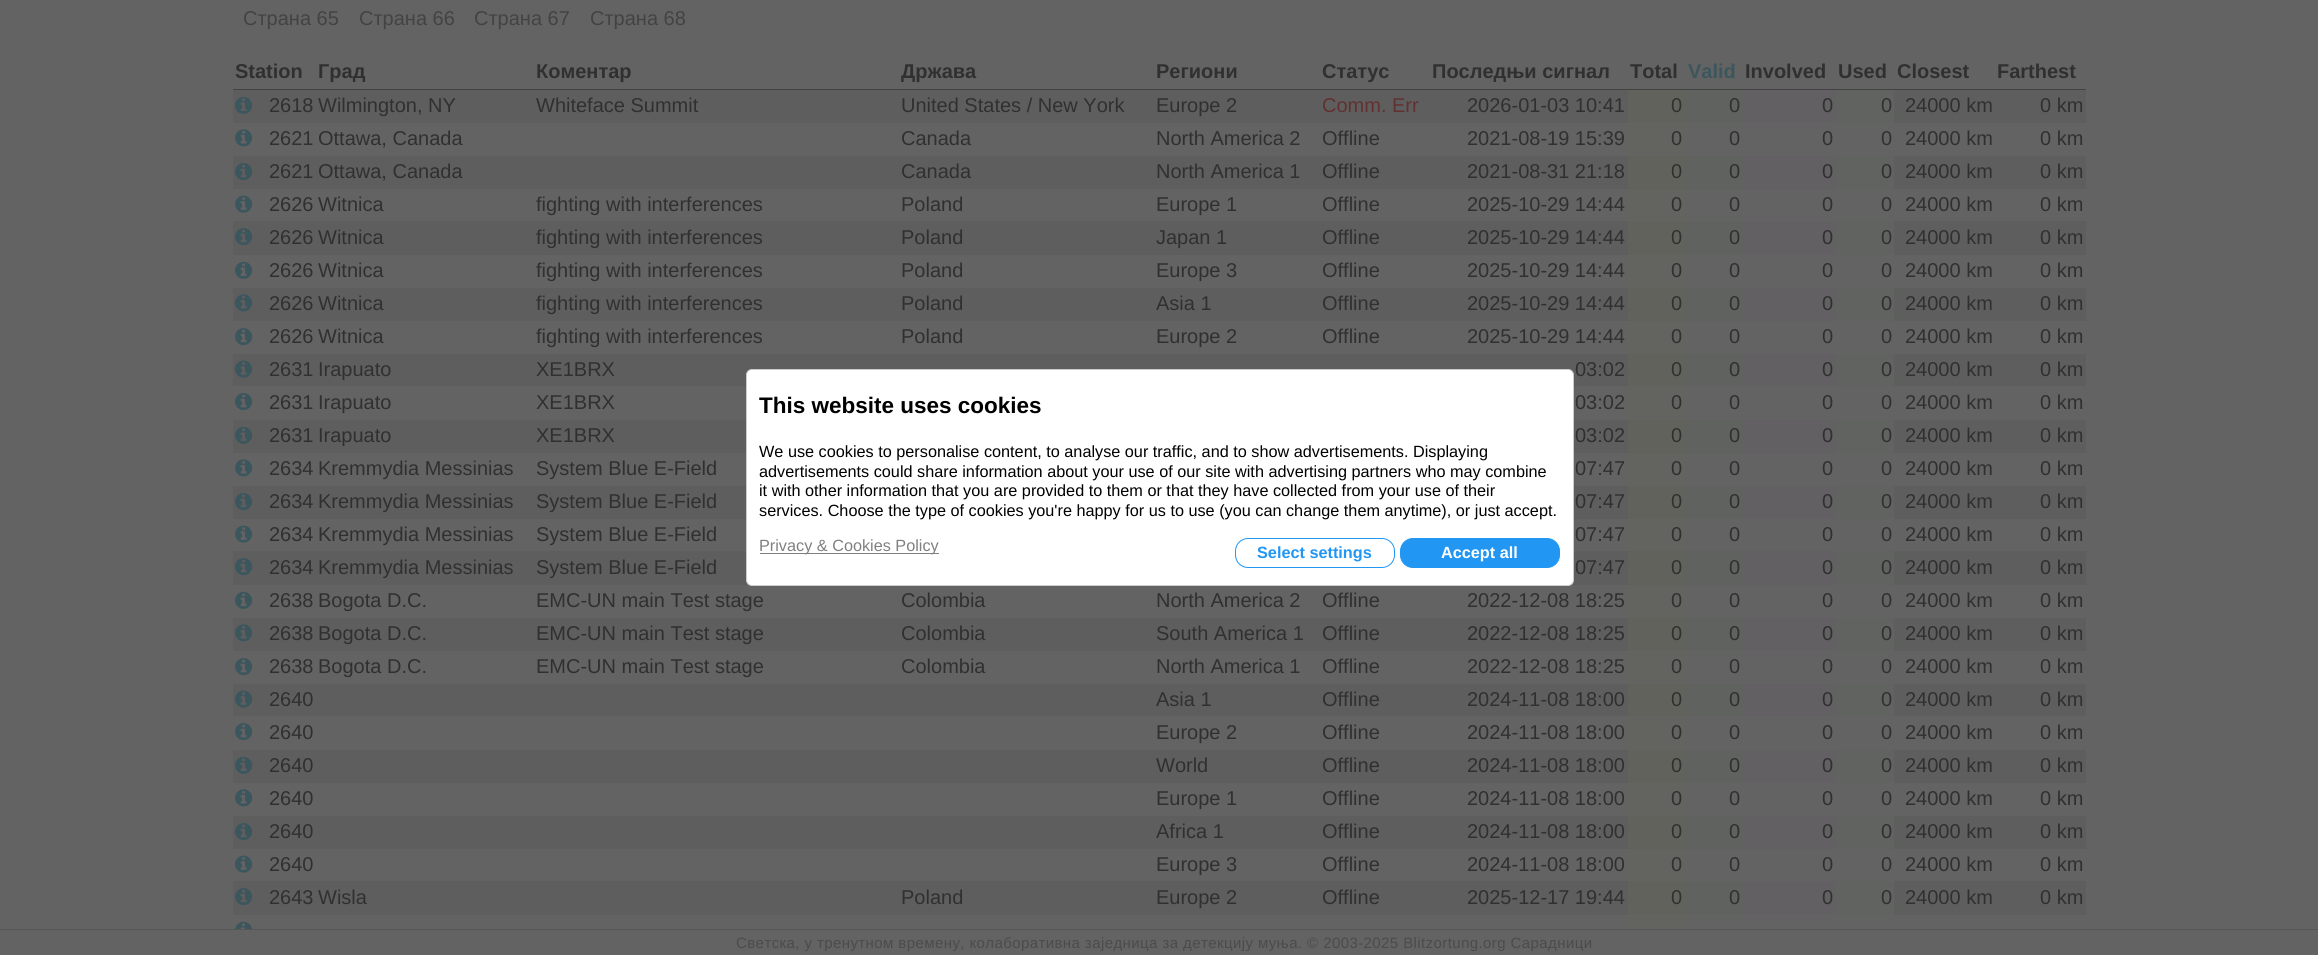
import math
import cairo


def use_color(cr, r, g, b):
  cr.set_source_rgb(r / 255, g / 255, b / 255)

def text(cr, x, y, s, family, size, color, bold=False, italic=False):
  cr.select_font_face(family, cairo.FONT_SLANT_ITALIC if italic else cairo.FONT_SLANT_NORMAL, cairo.FONT_WEIGHT_BOLD if bold else cairo.FONT_WEIGHT_NORMAL)
  cr.set_font_size(size)
  use_color(cr, *color)
  cr.move_to(x, y)
  cr.show_text(s)

def spaced_text(cr, x, y, s, letter, word):
  cr.move_to(x, y)
  for ch in s:
    cr.show_text(ch)
    cr.rel_move_to(letter + word * (ch == ' '), 0)

def box(cr, x, y, w, h, *color):
  use_color(cr, *color)
  cr.rectangle(x, y, w, h)
  cr.fill()

def round_rect(cr, x, y, w, h, r):
  cr.new_sub_path()
  for i, (u, v) in enumerate([(x + w - r, y + h - r), (x + r, y + h - r), (x + r, y + r), (x + w - r, y + r)]):
    cr.arc(u, v, r, i * math.pi / 2, (i + 1) * math.pi / 2)
  cr.close_path()

def picture(cr, path, x, y, w, h):
  cr.save()
  cr.set_source_surface(cairo.ImageSurface.create_from_png(path), x, y)
  cr.rectangle(x, y, w, h)
  cr.fill()
  cr.restore()

def draw(cr):
  use_color(cr, 99, 99, 99)
  cr.paint()
  box(cr, 233, 89, 1853, 1, 67, 67, 67)
  box(cr, 233, 90, 1853, 33, 94, 94, 94)
  picture(cr, "img_01.png", 235, 96, 18, 18)
  box(cr, 1628, 90, 57, 33, 98, 98, 93)
  box(cr, 1685, 90, 58, 33, 96, 98, 96)
  box(cr, 1743, 90, 93, 33, 98, 96, 98)
  box(cr, 1836, 90, 58, 33, 96, 99, 96)
  picture(cr, "img_02.png", 235, 129, 18, 18)
  box(cr, 1628, 123, 57, 33, 99, 99, 96)
  box(cr, 233, 156, 1853, 33, 94, 94, 94)
  picture(cr, "img_03.png", 235, 163, 18, 18)
  box(cr, 1628, 156, 57, 33, 98, 98, 93)
  box(cr, 1685, 156, 58, 33, 96, 98, 96)
  box(cr, 1743, 156, 93, 33, 98, 96, 98)
  box(cr, 1836, 156, 58, 33, 96, 99, 96)
  picture(cr, "img_04.png", 235, 195, 18, 18)
  box(cr, 1628, 189, 57, 32, 99, 99, 96)
  box(cr, 233, 221, 1853, 34, 94, 94, 94)
  picture(cr, "img_03.png", 235, 228, 18, 18)
  box(cr, 1628, 221, 57, 34, 98, 98, 93)
  box(cr, 1685, 221, 58, 34, 96, 98, 96)
  box(cr, 1743, 221, 93, 34, 98, 96, 98)
  box(cr, 1836, 221, 58, 34, 96, 99, 96)
  picture(cr, "img_05.png", 235, 261, 18, 18)
  box(cr, 1628, 255, 57, 33, 99, 99, 96)
  box(cr, 233, 288, 1853, 33, 94, 94, 94)
  picture(cr, "img_06.png", 235, 294, 18, 18)
  box(cr, 1628, 288, 57, 33, 98, 98, 93)
  box(cr, 1685, 288, 58, 33, 96, 98, 96)
  box(cr, 1743, 288, 93, 33, 98, 96, 98)
  box(cr, 1836, 288, 58, 33, 96, 99, 96)
  picture(cr, "img_07.png", 235, 328, 18, 18)
  box(cr, 1628, 321, 57, 33, 99, 99, 96)
  box(cr, 233, 354, 1853, 32, 94, 94, 94)
  picture(cr, "img_08.png", 235, 360, 18, 18)
  box(cr, 1628, 354, 57, 32, 98, 98, 93)
  box(cr, 1685, 354, 58, 32, 96, 98, 96)
  box(cr, 1743, 354, 93, 32, 98, 96, 98)
  box(cr, 1836, 354, 58, 32, 96, 99, 96)
  picture(cr, "img_07.png", 235, 393, 18, 18)
  box(cr, 1628, 386, 57, 34, 99, 99, 96)
  box(cr, 233, 420, 1853, 33, 94, 94, 94)
  picture(cr, "img_01.png", 235, 426, 18, 18)
  box(cr, 1628, 420, 57, 33, 98, 98, 93)
  box(cr, 1685, 420, 58, 33, 96, 98, 96)
  box(cr, 1743, 420, 93, 33, 98, 96, 98)
  box(cr, 1836, 420, 58, 33, 96, 99, 96)
  picture(cr, "img_02.png", 235, 459, 18, 18)
  box(cr, 1628, 453, 57, 33, 99, 99, 96)
  box(cr, 233, 486, 1853, 33, 94, 94, 94)
  picture(cr, "img_03.png", 235, 493, 18, 18)
  box(cr, 1628, 486, 57, 33, 98, 98, 93)
  box(cr, 1685, 486, 58, 33, 96, 98, 96)
  box(cr, 1743, 486, 93, 33, 98, 96, 98)
  box(cr, 1836, 486, 58, 33, 96, 99, 96)
  picture(cr, "img_04.png", 235, 525, 18, 18)
  box(cr, 1628, 519, 57, 32, 99, 99, 96)
  box(cr, 233, 551, 1853, 34, 94, 94, 94)
  picture(cr, "img_03.png", 235, 558, 18, 18)
  box(cr, 1628, 551, 57, 34, 98, 98, 93)
  box(cr, 1685, 551, 58, 34, 96, 98, 96)
  box(cr, 1743, 551, 93, 34, 98, 96, 98)
  box(cr, 1836, 551, 58, 34, 96, 99, 96)
  picture(cr, "img_05.png", 235, 591, 18, 18)
  box(cr, 1628, 585, 57, 33, 99, 99, 96)
  box(cr, 233, 618, 1853, 33, 94, 94, 94)
  picture(cr, "img_06.png", 235, 624, 18, 18)
  box(cr, 1628, 618, 57, 33, 98, 98, 93)
  box(cr, 1685, 618, 58, 33, 96, 98, 96)
  box(cr, 1743, 618, 93, 33, 98, 96, 98)
  box(cr, 1836, 618, 58, 33, 96, 99, 96)
  picture(cr, "img_07.png", 235, 658, 18, 18)
  box(cr, 1628, 651, 57, 33, 99, 99, 96)
  box(cr, 233, 684, 1853, 32, 94, 94, 94)
  picture(cr, "img_08.png", 235, 690, 18, 18)
  box(cr, 1628, 684, 57, 32, 98, 98, 93)
  box(cr, 1685, 684, 58, 32, 96, 98, 96)
  box(cr, 1743, 684, 93, 32, 98, 96, 98)
  box(cr, 1836, 684, 58, 32, 96, 99, 96)
  picture(cr, "img_07.png", 235, 723, 18, 18)
  box(cr, 1628, 716, 57, 34, 99, 99, 96)
  box(cr, 233, 750, 1853, 33, 94, 94, 94)
  picture(cr, "img_01.png", 235, 756, 18, 18)
  box(cr, 1628, 750, 57, 33, 98, 98, 93)
  box(cr, 1685, 750, 58, 33, 96, 98, 96)
  box(cr, 1743, 750, 93, 33, 98, 96, 98)
  box(cr, 1836, 750, 58, 33, 96, 99, 96)
  picture(cr, "img_02.png", 235, 789, 18, 18)
  box(cr, 1628, 783, 57, 33, 99, 99, 96)
  box(cr, 233, 816, 1853, 33, 94, 94, 94)
  picture(cr, "img_03.png", 235, 823, 18, 18)
  box(cr, 1628, 816, 57, 33, 98, 98, 93)
  box(cr, 1685, 816, 58, 33, 96, 98, 96)
  box(cr, 1743, 816, 93, 33, 98, 96, 98)
  box(cr, 1836, 816, 58, 33, 96, 99, 96)
  picture(cr, "img_04.png", 235, 855, 18, 18)
  box(cr, 1628, 849, 57, 32, 99, 99, 96)
  box(cr, 233, 881, 1853, 34, 94, 94, 94)
  picture(cr, "img_03.png", 235, 888, 18, 18)
  box(cr, 1628, 881, 57, 34, 98, 98, 93)
  box(cr, 1685, 881, 58, 34, 96, 98, 96)
  box(cr, 1743, 881, 93, 34, 98, 96, 98)
  box(cr, 1836, 881, 58, 34, 96, 99, 96)
  picture(cr, "img_09.png", 235, 921, 17, 8)
  box(cr, 1628, 915, 57, 14, 99, 99, 96)
  use_color(cr, 255, 255, 255)
  round_rect(cr, 746.5, 369.5, 827, 216, 5.5)
  cr.fill_preserve()
  use_color(cr, 204, 204, 204)
  cr.set_line_width(1)
  cr.stroke()
  box(cr, 760, 553, 179, 1, 128, 128, 128)
  round_rect(cr, 1235.5, 538.5, 159, 29, 12.5)
  use_color(cr, 33, 150, 243)
  cr.stroke()
  round_rect(cr, 1400.5, 538.5, 159, 29, 12.5)
  cr.fill_preserve()
  cr.stroke()
  box(cr, 0, 929, 2318, 1, 86, 86, 86)
  text(cr, 243, 25, "Страна 65", "Liberation Sans", 20, (67, 67, 67))
  text(cr, 359, 25, "Страна 66", "Liberation Sans", 20, (67, 67, 67))
  text(cr, 474, 25, "Страна 67", "Liberation Sans", 20, (67, 67, 67))
  text(cr, 590, 25, "Страна 68", "Liberation Sans", 20, (67, 67, 67))
  text(cr, 235, 78, "Station", "Liberation Sans", 20, (48, 48, 48), bold=True)
  text(cr, 318, 78, "Град", "Liberation Sans", 20, (48, 48, 48), bold=True)
  text(cr, 536, 78, "Коментар", "Liberation Sans", 20, (48, 48, 48), bold=True)
  text(cr, 901, 78, "Држава", "Liberation Sans", 20, (48, 48, 48), bold=True)
  text(cr, 1156, 78, "Региони", "Liberation Sans", 20, (48, 48, 48), bold=True)
  text(cr, 1322, 78, "Статус", "Liberation Sans", 20, (48, 48, 48), bold=True)
  text(cr, 1432, 78, "Последњи сигнал", "Liberation Sans", 20, (48, 48, 48), bold=True)
  text(cr, 1630, 78, "Total", "Liberation Sans", 20, (48, 48, 48), bold=True)
  text(cr, 1688, 78, "Valid", "Liberation Sans", 20, (59, 86, 93), bold=True)
  text(cr, 1745, 78, "Involved", "Liberation Sans", 20, (48, 48, 48), bold=True)
  text(cr, 1838, 78, "Used", "Liberation Sans", 20, (48, 48, 48), bold=True)
  text(cr, 1897, 78, "Closest", "Liberation Sans", 20, (48, 48, 48), bold=True)
  text(cr, 1997, 78, "Farthest", "Liberation Sans", 20, (48, 48, 48), bold=True)
  text(cr, 269, 112, "2618", "Liberation Sans", 20, (48, 48, 48))
  text(cr, 318, 112, "Wilmington, NY", "Liberation Sans", 20, (48, 48, 48))
  text(cr, 536, 112, "Whiteface Summit", "Liberation Sans", 20, (48, 48, 48))
  text(cr, 901, 112, "United States / New York", "Liberation Sans", 20, (48, 48, 48))
  text(cr, 1156, 112, "Europe 2", "Liberation Sans", 20, (48, 48, 48))
  text(cr, 1322, 112, "Comm. Err", "Liberation Sans", 20, (99, 48, 48))
  text(cr, 1467, 112, "2026-01-03 10:41", "Liberation Sans", 20, (48, 48, 48))
  text(cr, 1671, 112, "0", "Liberation Sans", 20, (48, 48, 48))
  text(cr, 1729, 112, "0", "Liberation Sans", 20, (48, 48, 48))
  text(cr, 1822, 112, "0", "Liberation Sans", 20, (48, 48, 48))
  text(cr, 1881, 112, "0", "Liberation Sans", 20, (48, 48, 48))
  text(cr, 1905, 112, "24000 km", "Liberation Sans", 20, (48, 48, 48))
  text(cr, 2040, 112, "0 km", "Liberation Sans", 20, (48, 48, 48))
  text(cr, 269, 145, "2621", "Liberation Sans", 20, (48, 48, 48))
  text(cr, 318, 145, "Ottawa, Canada", "Liberation Sans", 20, (48, 48, 48))
  text(cr, 901, 145, "Canada", "Liberation Sans", 20, (48, 48, 48))
  text(cr, 1156, 145, "North America 2", "Liberation Sans", 20, (48, 48, 48))
  text(cr, 1322, 145, "Offline", "Liberation Sans", 20, (48, 48, 48))
  text(cr, 1467, 145, "2021-08-19 15:39", "Liberation Sans", 20, (48, 48, 48))
  text(cr, 1671, 145, "0", "Liberation Sans", 20, (48, 48, 48))
  text(cr, 1729, 145, "0", "Liberation Sans", 20, (48, 48, 48))
  text(cr, 1822, 145, "0", "Liberation Sans", 20, (48, 48, 48))
  text(cr, 1881, 145, "0", "Liberation Sans", 20, (48, 48, 48))
  text(cr, 1905, 145, "24000 km", "Liberation Sans", 20, (48, 48, 48))
  text(cr, 2040, 145, "0 km", "Liberation Sans", 20, (48, 48, 48))
  text(cr, 269, 178, "2621", "Liberation Sans", 20, (48, 48, 48))
  text(cr, 318, 178, "Ottawa, Canada", "Liberation Sans", 20, (48, 48, 48))
  text(cr, 901, 178, "Canada", "Liberation Sans", 20, (48, 48, 48))
  text(cr, 1156, 178, "North America 1", "Liberation Sans", 20, (48, 48, 48))
  text(cr, 1322, 178, "Offline", "Liberation Sans", 20, (48, 48, 48))
  text(cr, 1467, 178, "2021-08-31 21:18", "Liberation Sans", 20, (48, 48, 48))
  text(cr, 1671, 178, "0", "Liberation Sans", 20, (48, 48, 48))
  text(cr, 1729, 178, "0", "Liberation Sans", 20, (48, 48, 48))
  text(cr, 1822, 178, "0", "Liberation Sans", 20, (48, 48, 48))
  text(cr, 1881, 178, "0", "Liberation Sans", 20, (48, 48, 48))
  text(cr, 1905, 178, "24000 km", "Liberation Sans", 20, (48, 48, 48))
  text(cr, 2040, 178, "0 km", "Liberation Sans", 20, (48, 48, 48))
  text(cr, 269, 211, "2626", "Liberation Sans", 20, (48, 48, 48))
  text(cr, 318, 211, "Witnica", "Liberation Sans", 20, (48, 48, 48))
  text(cr, 536, 211, "fighting with interferences", "Liberation Sans", 20, (48, 48, 48))
  text(cr, 901, 211, "Poland", "Liberation Sans", 20, (48, 48, 48))
  text(cr, 1156, 211, "Europe 1", "Liberation Sans", 20, (48, 48, 48))
  text(cr, 1322, 211, "Offline", "Liberation Sans", 20, (48, 48, 48))
  text(cr, 1467, 211, "2025-10-29 14:44", "Liberation Sans", 20, (48, 48, 48))
  text(cr, 1671, 211, "0", "Liberation Sans", 20, (48, 48, 48))
  text(cr, 1729, 211, "0", "Liberation Sans", 20, (48, 48, 48))
  text(cr, 1822, 211, "0", "Liberation Sans", 20, (48, 48, 48))
  text(cr, 1881, 211, "0", "Liberation Sans", 20, (48, 48, 48))
  text(cr, 1905, 211, "24000 km", "Liberation Sans", 20, (48, 48, 48))
  text(cr, 2040, 211, "0 km", "Liberation Sans", 20, (48, 48, 48))
  text(cr, 269, 244, "2626", "Liberation Sans", 20, (48, 48, 48))
  text(cr, 318, 244, "Witnica", "Liberation Sans", 20, (48, 48, 48))
  text(cr, 536, 244, "fighting with interferences", "Liberation Sans", 20, (48, 48, 48))
  text(cr, 901, 244, "Poland", "Liberation Sans", 20, (48, 48, 48))
  text(cr, 1156, 244, "Japan 1", "Liberation Sans", 20, (48, 48, 48))
  text(cr, 1322, 244, "Offline", "Liberation Sans", 20, (48, 48, 48))
  text(cr, 1467, 244, "2025-10-29 14:44", "Liberation Sans", 20, (48, 48, 48))
  text(cr, 1671, 244, "0", "Liberation Sans", 20, (48, 48, 48))
  text(cr, 1729, 244, "0", "Liberation Sans", 20, (48, 48, 48))
  text(cr, 1822, 244, "0", "Liberation Sans", 20, (48, 48, 48))
  text(cr, 1881, 244, "0", "Liberation Sans", 20, (48, 48, 48))
  text(cr, 1905, 244, "24000 km", "Liberation Sans", 20, (48, 48, 48))
  text(cr, 2040, 244, "0 km", "Liberation Sans", 20, (48, 48, 48))
  text(cr, 269, 277, "2626", "Liberation Sans", 20, (48, 48, 48))
  text(cr, 318, 277, "Witnica", "Liberation Sans", 20, (48, 48, 48))
  text(cr, 536, 277, "fighting with interferences", "Liberation Sans", 20, (48, 48, 48))
  text(cr, 901, 277, "Poland", "Liberation Sans", 20, (48, 48, 48))
  text(cr, 1156, 277, "Europe 3", "Liberation Sans", 20, (48, 48, 48))
  text(cr, 1322, 277, "Offline", "Liberation Sans", 20, (48, 48, 48))
  text(cr, 1467, 277, "2025-10-29 14:44", "Liberation Sans", 20, (48, 48, 48))
  text(cr, 1671, 277, "0", "Liberation Sans", 20, (48, 48, 48))
  text(cr, 1729, 277, "0", "Liberation Sans", 20, (48, 48, 48))
  text(cr, 1822, 277, "0", "Liberation Sans", 20, (48, 48, 48))
  text(cr, 1881, 277, "0", "Liberation Sans", 20, (48, 48, 48))
  text(cr, 1905, 277, "24000 km", "Liberation Sans", 20, (48, 48, 48))
  text(cr, 2040, 277, "0 km", "Liberation Sans", 20, (48, 48, 48))
  text(cr, 269, 310, "2626", "Liberation Sans", 20, (48, 48, 48))
  text(cr, 318, 310, "Witnica", "Liberation Sans", 20, (48, 48, 48))
  text(cr, 536, 310, "fighting with interferences", "Liberation Sans", 20, (48, 48, 48))
  text(cr, 901, 310, "Poland", "Liberation Sans", 20, (48, 48, 48))
  text(cr, 1156, 310, "Asia 1", "Liberation Sans", 20, (48, 48, 48))
  text(cr, 1322, 310, "Offline", "Liberation Sans", 20, (48, 48, 48))
  text(cr, 1467, 310, "2025-10-29 14:44", "Liberation Sans", 20, (48, 48, 48))
  text(cr, 1671, 310, "0", "Liberation Sans", 20, (48, 48, 48))
  text(cr, 1729, 310, "0", "Liberation Sans", 20, (48, 48, 48))
  text(cr, 1822, 310, "0", "Liberation Sans", 20, (48, 48, 48))
  text(cr, 1881, 310, "0", "Liberation Sans", 20, (48, 48, 48))
  text(cr, 1905, 310, "24000 km", "Liberation Sans", 20, (48, 48, 48))
  text(cr, 2040, 310, "0 km", "Liberation Sans", 20, (48, 48, 48))
  text(cr, 269, 343, "2626", "Liberation Sans", 20, (48, 48, 48))
  text(cr, 318, 343, "Witnica", "Liberation Sans", 20, (48, 48, 48))
  text(cr, 536, 343, "fighting with interferences", "Liberation Sans", 20, (48, 48, 48))
  text(cr, 901, 343, "Poland", "Liberation Sans", 20, (48, 48, 48))
  text(cr, 1156, 343, "Europe 2", "Liberation Sans", 20, (48, 48, 48))
  text(cr, 1322, 343, "Offline", "Liberation Sans", 20, (48, 48, 48))
  text(cr, 1467, 343, "2025-10-29 14:44", "Liberation Sans", 20, (48, 48, 48))
  text(cr, 1671, 343, "0", "Liberation Sans", 20, (48, 48, 48))
  text(cr, 1729, 343, "0", "Liberation Sans", 20, (48, 48, 48))
  text(cr, 1822, 343, "0", "Liberation Sans", 20, (48, 48, 48))
  text(cr, 1881, 343, "0", "Liberation Sans", 20, (48, 48, 48))
  text(cr, 1905, 343, "24000 km", "Liberation Sans", 20, (48, 48, 48))
  text(cr, 2040, 343, "0 km", "Liberation Sans", 20, (48, 48, 48))
  text(cr, 269, 376, "2631", "Liberation Sans", 20, (48, 48, 48))
  text(cr, 318, 376, "Irapuato", "Liberation Sans", 20, (48, 48, 48))
  text(cr, 536, 376, "XE1BRX", "Liberation Sans", 20, (48, 48, 48))
  text(cr, 1575, 376, "03:02", "Liberation Sans", 20, (48, 48, 48))
  text(cr, 1671, 376, "0", "Liberation Sans", 20, (48, 48, 48))
  text(cr, 1729, 376, "0", "Liberation Sans", 20, (48, 48, 48))
  text(cr, 1822, 376, "0", "Liberation Sans", 20, (48, 48, 48))
  text(cr, 1881, 376, "0", "Liberation Sans", 20, (48, 48, 48))
  text(cr, 1905, 376, "24000 km", "Liberation Sans", 20, (48, 48, 48))
  text(cr, 2040, 376, "0 km", "Liberation Sans", 20, (48, 48, 48))
  text(cr, 269, 409, "2631", "Liberation Sans", 20, (48, 48, 48))
  text(cr, 318, 409, "Irapuato", "Liberation Sans", 20, (48, 48, 48))
  text(cr, 536, 409, "XE1BRX", "Liberation Sans", 20, (48, 48, 48))
  text(cr, 1575, 409, "03:02", "Liberation Sans", 20, (48, 48, 48))
  text(cr, 1671, 409, "0", "Liberation Sans", 20, (48, 48, 48))
  text(cr, 1729, 409, "0", "Liberation Sans", 20, (48, 48, 48))
  text(cr, 1822, 409, "0", "Liberation Sans", 20, (48, 48, 48))
  text(cr, 1881, 409, "0", "Liberation Sans", 20, (48, 48, 48))
  text(cr, 1905, 409, "24000 km", "Liberation Sans", 20, (48, 48, 48))
  text(cr, 2040, 409, "0 km", "Liberation Sans", 20, (48, 48, 48))
  text(cr, 269, 442, "2631", "Liberation Sans", 20, (48, 48, 48))
  text(cr, 318, 442, "Irapuato", "Liberation Sans", 20, (48, 48, 48))
  text(cr, 536, 442, "XE1BRX", "Liberation Sans", 20, (48, 48, 48))
  text(cr, 1575, 442, "03:02", "Liberation Sans", 20, (48, 48, 48))
  text(cr, 1671, 442, "0", "Liberation Sans", 20, (48, 48, 48))
  text(cr, 1729, 442, "0", "Liberation Sans", 20, (48, 48, 48))
  text(cr, 1822, 442, "0", "Liberation Sans", 20, (48, 48, 48))
  text(cr, 1881, 442, "0", "Liberation Sans", 20, (48, 48, 48))
  text(cr, 1905, 442, "24000 km", "Liberation Sans", 20, (48, 48, 48))
  text(cr, 2040, 442, "0 km", "Liberation Sans", 20, (48, 48, 48))
  text(cr, 269, 475, "2634", "Liberation Sans", 20, (48, 48, 48))
  text(cr, 318, 475, "Kremmydia Messinias", "Liberation Sans", 20, (48, 48, 48))
  text(cr, 536, 475, "System Blue E-Field", "Liberation Sans", 20, (48, 48, 48))
  text(cr, 1575, 475, "07:47", "Liberation Sans", 20, (48, 48, 48))
  text(cr, 1671, 475, "0", "Liberation Sans", 20, (48, 48, 48))
  text(cr, 1729, 475, "0", "Liberation Sans", 20, (48, 48, 48))
  text(cr, 1822, 475, "0", "Liberation Sans", 20, (48, 48, 48))
  text(cr, 1881, 475, "0", "Liberation Sans", 20, (48, 48, 48))
  text(cr, 1905, 475, "24000 km", "Liberation Sans", 20, (48, 48, 48))
  text(cr, 2040, 475, "0 km", "Liberation Sans", 20, (48, 48, 48))
  text(cr, 269, 508, "2634", "Liberation Sans", 20, (48, 48, 48))
  text(cr, 318, 508, "Kremmydia Messinias", "Liberation Sans", 20, (48, 48, 48))
  text(cr, 536, 508, "System Blue E-Field", "Liberation Sans", 20, (48, 48, 48))
  text(cr, 1575, 508, "07:47", "Liberation Sans", 20, (48, 48, 48))
  text(cr, 1671, 508, "0", "Liberation Sans", 20, (48, 48, 48))
  text(cr, 1729, 508, "0", "Liberation Sans", 20, (48, 48, 48))
  text(cr, 1822, 508, "0", "Liberation Sans", 20, (48, 48, 48))
  text(cr, 1881, 508, "0", "Liberation Sans", 20, (48, 48, 48))
  text(cr, 1905, 508, "24000 km", "Liberation Sans", 20, (48, 48, 48))
  text(cr, 2040, 508, "0 km", "Liberation Sans", 20, (48, 48, 48))
  text(cr, 269, 541, "2634", "Liberation Sans", 20, (48, 48, 48))
  text(cr, 318, 541, "Kremmydia Messinias", "Liberation Sans", 20, (48, 48, 48))
  text(cr, 536, 541, "System Blue E-Field", "Liberation Sans", 20, (48, 48, 48))
  text(cr, 1575, 541, "07:47", "Liberation Sans", 20, (48, 48, 48))
  text(cr, 1671, 541, "0", "Liberation Sans", 20, (48, 48, 48))
  text(cr, 1729, 541, "0", "Liberation Sans", 20, (48, 48, 48))
  text(cr, 1822, 541, "0", "Liberation Sans", 20, (48, 48, 48))
  text(cr, 1881, 541, "0", "Liberation Sans", 20, (48, 48, 48))
  text(cr, 1905, 541, "24000 km", "Liberation Sans", 20, (48, 48, 48))
  text(cr, 2040, 541, "0 km", "Liberation Sans", 20, (48, 48, 48))
  text(cr, 269, 574, "2634", "Liberation Sans", 20, (48, 48, 48))
  text(cr, 318, 574, "Kremmydia Messinias", "Liberation Sans", 20, (48, 48, 48))
  text(cr, 536, 574, "System Blue E-Field", "Liberation Sans", 20, (48, 48, 48))
  text(cr, 1575, 574, "07:47", "Liberation Sans", 20, (48, 48, 48))
  text(cr, 1671, 574, "0", "Liberation Sans", 20, (48, 48, 48))
  text(cr, 1729, 574, "0", "Liberation Sans", 20, (48, 48, 48))
  text(cr, 1822, 574, "0", "Liberation Sans", 20, (48, 48, 48))
  text(cr, 1881, 574, "0", "Liberation Sans", 20, (48, 48, 48))
  text(cr, 1905, 574, "24000 km", "Liberation Sans", 20, (48, 48, 48))
  text(cr, 2040, 574, "0 km", "Liberation Sans", 20, (48, 48, 48))
  text(cr, 269, 607, "2638", "Liberation Sans", 20, (48, 48, 48))
  text(cr, 318, 607, "Bogota D.C.", "Liberation Sans", 20, (48, 48, 48))
  text(cr, 536, 607, "EMC-UN main Test stage", "Liberation Sans", 20, (48, 48, 48))
  text(cr, 901, 607, "Colombia", "Liberation Sans", 20, (48, 48, 48))
  text(cr, 1156, 607, "North America 2", "Liberation Sans", 20, (48, 48, 48))
  text(cr, 1322, 607, "Offline", "Liberation Sans", 20, (48, 48, 48))
  text(cr, 1467, 607, "2022-12-08 18:25", "Liberation Sans", 20, (48, 48, 48))
  text(cr, 1671, 607, "0", "Liberation Sans", 20, (48, 48, 48))
  text(cr, 1729, 607, "0", "Liberation Sans", 20, (48, 48, 48))
  text(cr, 1822, 607, "0", "Liberation Sans", 20, (48, 48, 48))
  text(cr, 1881, 607, "0", "Liberation Sans", 20, (48, 48, 48))
  text(cr, 1905, 607, "24000 km", "Liberation Sans", 20, (48, 48, 48))
  text(cr, 2040, 607, "0 km", "Liberation Sans", 20, (48, 48, 48))
  text(cr, 269, 640, "2638", "Liberation Sans", 20, (48, 48, 48))
  text(cr, 318, 640, "Bogota D.C.", "Liberation Sans", 20, (48, 48, 48))
  text(cr, 536, 640, "EMC-UN main Test stage", "Liberation Sans", 20, (48, 48, 48))
  text(cr, 901, 640, "Colombia", "Liberation Sans", 20, (48, 48, 48))
  text(cr, 1156, 640, "South America 1", "Liberation Sans", 20, (48, 48, 48))
  text(cr, 1322, 640, "Offline", "Liberation Sans", 20, (48, 48, 48))
  text(cr, 1467, 640, "2022-12-08 18:25", "Liberation Sans", 20, (48, 48, 48))
  text(cr, 1671, 640, "0", "Liberation Sans", 20, (48, 48, 48))
  text(cr, 1729, 640, "0", "Liberation Sans", 20, (48, 48, 48))
  text(cr, 1822, 640, "0", "Liberation Sans", 20, (48, 48, 48))
  text(cr, 1881, 640, "0", "Liberation Sans", 20, (48, 48, 48))
  text(cr, 1905, 640, "24000 km", "Liberation Sans", 20, (48, 48, 48))
  text(cr, 2040, 640, "0 km", "Liberation Sans", 20, (48, 48, 48))
  text(cr, 269, 673, "2638", "Liberation Sans", 20, (48, 48, 48))
  text(cr, 318, 673, "Bogota D.C.", "Liberation Sans", 20, (48, 48, 48))
  text(cr, 536, 673, "EMC-UN main Test stage", "Liberation Sans", 20, (48, 48, 48))
  text(cr, 901, 673, "Colombia", "Liberation Sans", 20, (48, 48, 48))
  text(cr, 1156, 673, "North America 1", "Liberation Sans", 20, (48, 48, 48))
  text(cr, 1322, 673, "Offline", "Liberation Sans", 20, (48, 48, 48))
  text(cr, 1467, 673, "2022-12-08 18:25", "Liberation Sans", 20, (48, 48, 48))
  text(cr, 1671, 673, "0", "Liberation Sans", 20, (48, 48, 48))
  text(cr, 1729, 673, "0", "Liberation Sans", 20, (48, 48, 48))
  text(cr, 1822, 673, "0", "Liberation Sans", 20, (48, 48, 48))
  text(cr, 1881, 673, "0", "Liberation Sans", 20, (48, 48, 48))
  text(cr, 1905, 673, "24000 km", "Liberation Sans", 20, (48, 48, 48))
  text(cr, 2040, 673, "0 km", "Liberation Sans", 20, (48, 48, 48))
  text(cr, 269, 706, "2640", "Liberation Sans", 20, (48, 48, 48))
  text(cr, 1156, 706, "Asia 1", "Liberation Sans", 20, (48, 48, 48))
  text(cr, 1322, 706, "Offline", "Liberation Sans", 20, (48, 48, 48))
  text(cr, 1467, 706, "2024-11-08 18:00", "Liberation Sans", 20, (48, 48, 48))
  text(cr, 1671, 706, "0", "Liberation Sans", 20, (48, 48, 48))
  text(cr, 1729, 706, "0", "Liberation Sans", 20, (48, 48, 48))
  text(cr, 1822, 706, "0", "Liberation Sans", 20, (48, 48, 48))
  text(cr, 1881, 706, "0", "Liberation Sans", 20, (48, 48, 48))
  text(cr, 1905, 706, "24000 km", "Liberation Sans", 20, (48, 48, 48))
  text(cr, 2040, 706, "0 km", "Liberation Sans", 20, (48, 48, 48))
  text(cr, 269, 739, "2640", "Liberation Sans", 20, (48, 48, 48))
  text(cr, 1156, 739, "Europe 2", "Liberation Sans", 20, (48, 48, 48))
  text(cr, 1322, 739, "Offline", "Liberation Sans", 20, (48, 48, 48))
  text(cr, 1467, 739, "2024-11-08 18:00", "Liberation Sans", 20, (48, 48, 48))
  text(cr, 1671, 739, "0", "Liberation Sans", 20, (48, 48, 48))
  text(cr, 1729, 739, "0", "Liberation Sans", 20, (48, 48, 48))
  text(cr, 1822, 739, "0", "Liberation Sans", 20, (48, 48, 48))
  text(cr, 1881, 739, "0", "Liberation Sans", 20, (48, 48, 48))
  text(cr, 1905, 739, "24000 km", "Liberation Sans", 20, (48, 48, 48))
  text(cr, 2040, 739, "0 km", "Liberation Sans", 20, (48, 48, 48))
  text(cr, 269, 772, "2640", "Liberation Sans", 20, (48, 48, 48))
  text(cr, 1156, 772, "World", "Liberation Sans", 20, (48, 48, 48))
  text(cr, 1322, 772, "Offline", "Liberation Sans", 20, (48, 48, 48))
  text(cr, 1467, 772, "2024-11-08 18:00", "Liberation Sans", 20, (48, 48, 48))
  text(cr, 1671, 772, "0", "Liberation Sans", 20, (48, 48, 48))
  text(cr, 1729, 772, "0", "Liberation Sans", 20, (48, 48, 48))
  text(cr, 1822, 772, "0", "Liberation Sans", 20, (48, 48, 48))
  text(cr, 1881, 772, "0", "Liberation Sans", 20, (48, 48, 48))
  text(cr, 1905, 772, "24000 km", "Liberation Sans", 20, (48, 48, 48))
  text(cr, 2040, 772, "0 km", "Liberation Sans", 20, (48, 48, 48))
  text(cr, 269, 805, "2640", "Liberation Sans", 20, (48, 48, 48))
  text(cr, 1156, 805, "Europe 1", "Liberation Sans", 20, (48, 48, 48))
  text(cr, 1322, 805, "Offline", "Liberation Sans", 20, (48, 48, 48))
  text(cr, 1467, 805, "2024-11-08 18:00", "Liberation Sans", 20, (48, 48, 48))
  text(cr, 1671, 805, "0", "Liberation Sans", 20, (48, 48, 48))
  text(cr, 1729, 805, "0", "Liberation Sans", 20, (48, 48, 48))
  text(cr, 1822, 805, "0", "Liberation Sans", 20, (48, 48, 48))
  text(cr, 1881, 805, "0", "Liberation Sans", 20, (48, 48, 48))
  text(cr, 1905, 805, "24000 km", "Liberation Sans", 20, (48, 48, 48))
  text(cr, 2040, 805, "0 km", "Liberation Sans", 20, (48, 48, 48))
  text(cr, 269, 838, "2640", "Liberation Sans", 20, (48, 48, 48))
  text(cr, 1156, 838, "Africa 1", "Liberation Sans", 20, (48, 48, 48))
  text(cr, 1322, 838, "Offline", "Liberation Sans", 20, (48, 48, 48))
  text(cr, 1467, 838, "2024-11-08 18:00", "Liberation Sans", 20, (48, 48, 48))
  text(cr, 1671, 838, "0", "Liberation Sans", 20, (48, 48, 48))
  text(cr, 1729, 838, "0", "Liberation Sans", 20, (48, 48, 48))
  text(cr, 1822, 838, "0", "Liberation Sans", 20, (48, 48, 48))
  text(cr, 1881, 838, "0", "Liberation Sans", 20, (48, 48, 48))
  text(cr, 1905, 838, "24000 km", "Liberation Sans", 20, (48, 48, 48))
  text(cr, 2040, 838, "0 km", "Liberation Sans", 20, (48, 48, 48))
  text(cr, 269, 871, "2640", "Liberation Sans", 20, (48, 48, 48))
  text(cr, 1156, 871, "Europe 3", "Liberation Sans", 20, (48, 48, 48))
  text(cr, 1322, 871, "Offline", "Liberation Sans", 20, (48, 48, 48))
  text(cr, 1467, 871, "2024-11-08 18:00", "Liberation Sans", 20, (48, 48, 48))
  text(cr, 1671, 871, "0", "Liberation Sans", 20, (48, 48, 48))
  text(cr, 1729, 871, "0", "Liberation Sans", 20, (48, 48, 48))
  text(cr, 1822, 871, "0", "Liberation Sans", 20, (48, 48, 48))
  text(cr, 1881, 871, "0", "Liberation Sans", 20, (48, 48, 48))
  text(cr, 1905, 871, "24000 km", "Liberation Sans", 20, (48, 48, 48))
  text(cr, 2040, 871, "0 km", "Liberation Sans", 20, (48, 48, 48))
  text(cr, 269, 904, "2643", "Liberation Sans", 20, (48, 48, 48))
  text(cr, 318, 904, "Wisla", "Liberation Sans", 20, (48, 48, 48))
  text(cr, 901, 904, "Poland", "Liberation Sans", 20, (48, 48, 48))
  text(cr, 1156, 904, "Europe 2", "Liberation Sans", 20, (48, 48, 48))
  text(cr, 1322, 904, "Offline", "Liberation Sans", 20, (48, 48, 48))
  text(cr, 1467, 904, "2025-12-17 19:44", "Liberation Sans", 20, (48, 48, 48))
  text(cr, 1671, 904, "0", "Liberation Sans", 20, (48, 48, 48))
  text(cr, 1729, 904, "0", "Liberation Sans", 20, (48, 48, 48))
  text(cr, 1822, 904, "0", "Liberation Sans", 20, (48, 48, 48))
  text(cr, 1881, 904, "0", "Liberation Sans", 20, (48, 48, 48))
  text(cr, 1905, 904, "24000 km", "Liberation Sans", 20, (48, 48, 48))
  text(cr, 2040, 904, "0 km", "Liberation Sans", 20, (48, 48, 48))
  text(cr, 759, 413, "This website uses cookies", "Liberation Sans", 22.5, (0, 0, 0), bold=True)
  text(cr, 759, 457, "We use cookies to personalise content, to analyse our traffic, and to show advertisements. Displaying", "Liberation Sans", 16.25, (0, 0, 0))
  text(cr, 759, 477, "advertisements could share information about your use of our site with advertising partners who may combine", "Liberation Sans", 16.25, (0, 0, 0))
  text(cr, 759, 496, "it with other information that you are provided to them or that they have collected from your use of their", "Liberation Sans", 16.25, (0, 0, 0))
  text(cr, 759, 516, "services. Choose the type of cookies you're happy for us to use (you can change them anytime), or just accept.", "Liberation Sans", 16.25, (0, 0, 0))
  text(cr, 759, 551, "Privacy & Cookies Policy", "Liberation Sans", 16.25, (128, 128, 128))
  text(cr, 1257, 558, "Select settings", "Liberation Sans", 16.25, (33, 150, 243), bold=True)
  text(cr, 1441, 558, "Accept all", "Liberation Sans", 16.25, (255, 255, 255), bold=True)
  cr.select_font_face("Liberation Sans")
  cr.set_font_size(15)
  use_color(cr, 75, 75, 75)
  spaced_text(cr, 736, 948, "Светска, у тренутном времену, колаборативна заједница за детекцију муња. © 2003-2025 Blitzortung.org Сарадници", 0.41, 0)


surface = cairo.ImageSurface(cairo.FORMAT_RGB24, 2318, 955)
cr = cairo.Context(surface)
options = cairo.FontOptions()
options.set_hint_metrics(cairo.HINT_METRICS_OFF)
options.set_hint_style(cairo.HINT_STYLE_NONE)
cr.set_font_options(options)
cr.set_miter_limit(4)
draw(cr)
surface.write_to_png("out.png")
